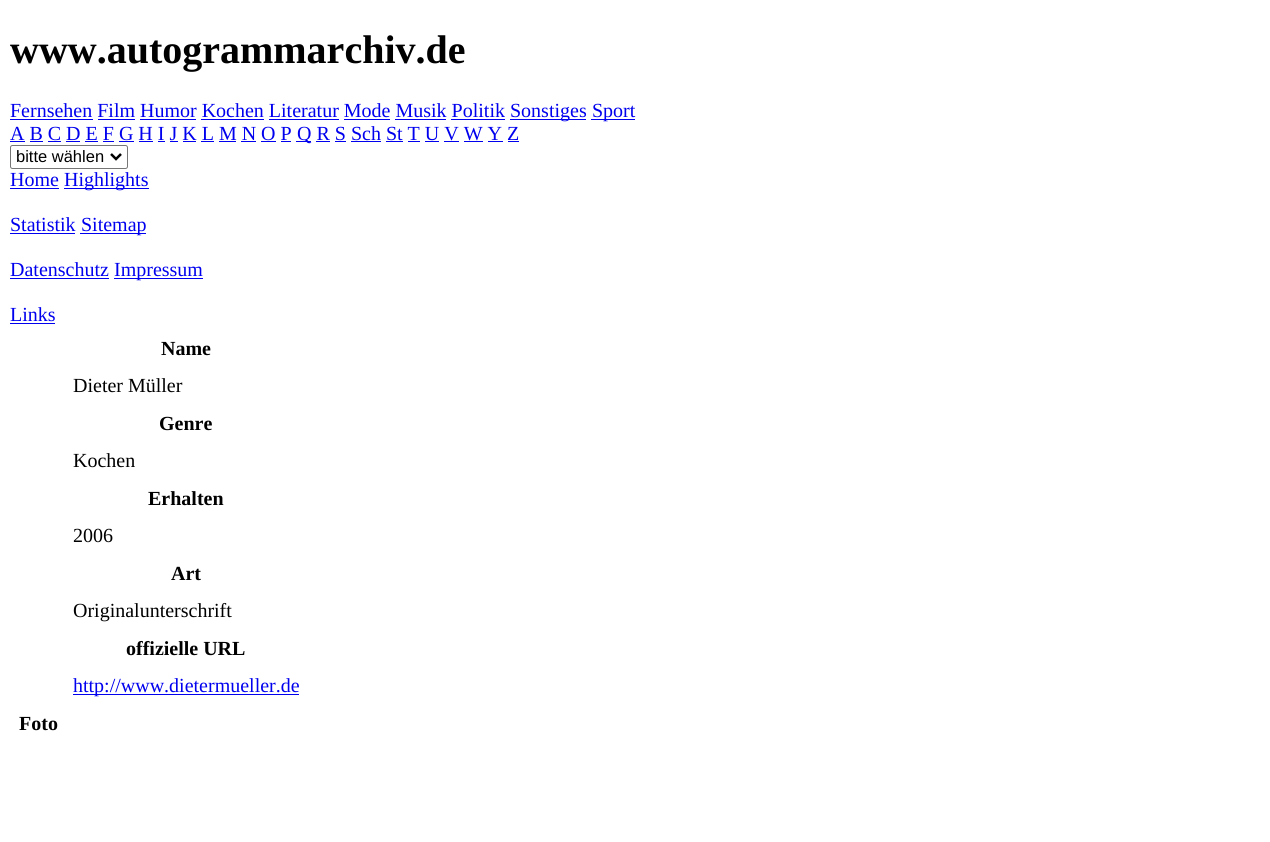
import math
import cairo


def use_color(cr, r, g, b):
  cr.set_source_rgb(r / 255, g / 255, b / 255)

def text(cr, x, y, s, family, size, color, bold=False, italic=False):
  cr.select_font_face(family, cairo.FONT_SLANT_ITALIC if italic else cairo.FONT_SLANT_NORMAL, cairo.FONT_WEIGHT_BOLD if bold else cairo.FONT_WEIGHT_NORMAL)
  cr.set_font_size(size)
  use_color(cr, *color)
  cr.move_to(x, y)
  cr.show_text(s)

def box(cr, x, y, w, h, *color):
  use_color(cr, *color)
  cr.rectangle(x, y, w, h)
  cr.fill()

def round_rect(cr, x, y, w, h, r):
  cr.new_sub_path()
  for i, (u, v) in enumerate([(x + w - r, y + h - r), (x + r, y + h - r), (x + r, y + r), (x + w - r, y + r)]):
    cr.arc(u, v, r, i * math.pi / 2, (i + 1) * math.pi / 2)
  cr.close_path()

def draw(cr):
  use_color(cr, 255, 255, 255)
  cr.paint()
  box(cr, 10, 119, 83, 1, 0, 0, 238)
  box(cr, 510, 119, 76, 1, 0, 0, 238)
  box(cr, 591, 119, 44, 1, 0, 0, 238)
  box(cr, 98, 119, 37, 1, 0, 0, 238)
  box(cr, 140, 119, 56, 1, 0, 0, 238)
  box(cr, 201, 119, 63, 1, 0, 0, 238)
  box(cr, 269, 119, 70, 1, 0, 0, 238)
  box(cr, 344, 119, 46, 1, 0, 0, 238)
  box(cr, 395, 119, 51, 1, 0, 0, 238)
  box(cr, 451, 119, 54, 1, 0, 0, 238)
  box(cr, 10, 141, 15, 1, 0, 0, 238)
  box(cr, 296, 141, 15, 1, 0, 0, 238)
  box(cr, 30, 141, 13, 1, 0, 0, 238)
  box(cr, 48, 141, 13, 1, 0, 0, 238)
  box(cr, 66, 141, 14, 1, 0, 0, 238)
  box(cr, 85, 141, 13, 1, 0, 0, 238)
  box(cr, 103, 141, 11, 1, 0, 0, 238)
  box(cr, 119, 141, 15, 1, 0, 0, 238)
  box(cr, 139, 141, 14, 1, 0, 0, 238)
  box(cr, 158, 141, 7, 1, 0, 0, 238)
  box(cr, 170, 141, 8, 1, 0, 0, 238)
  box(cr, 183, 141, 13, 1, 0, 0, 238)
  box(cr, 201, 141, 13, 1, 0, 0, 238)
  box(cr, 219, 141, 17, 1, 0, 0, 238)
  box(cr, 241, 141, 15, 1, 0, 0, 238)
  box(cr, 261, 141, 15, 1, 0, 0, 238)
  box(cr, 281, 141, 10, 1, 0, 0, 238)
  box(cr, 316, 141, 14, 1, 0, 0, 238)
  box(cr, 335, 141, 11, 1, 0, 0, 238)
  box(cr, 351, 141, 30, 1, 0, 0, 238)
  box(cr, 386, 141, 17, 1, 0, 0, 238)
  box(cr, 408, 141, 12, 1, 0, 0, 238)
  box(cr, 425, 141, 14, 1, 0, 0, 238)
  box(cr, 444, 141, 15, 1, 0, 0, 238)
  box(cr, 464, 141, 19, 1, 0, 0, 238)
  box(cr, 488, 141, 15, 1, 0, 0, 238)
  box(cr, 508, 141, 11, 1, 0, 0, 238)
  round_rect(cr, 10.5, 145.5, 117, 23, 2)
  use_color(cr, 118, 118, 118)
  cr.set_line_width(1)
  cr.stroke()
  cr.new_path()
  cr.move_to(111, 154)
  cr.line_to(116, 159)
  cr.line_to(121, 154)
  use_color(cr, 0, 0, 0)
  cr.set_line_width(2.5)
  cr.stroke()
  box(cr, 10, 188, 49, 1, 0, 0, 238)
  box(cr, 64, 188, 85, 1, 0, 0, 238)
  box(cr, 10, 233, 65, 1, 0, 0, 238)
  box(cr, 80, 233, 66, 1, 0, 0, 238)
  box(cr, 10, 278, 99, 1, 0, 0, 238)
  box(cr, 114, 278, 89, 1, 0, 0, 238)
  box(cr, 10, 323, 45, 1, 0, 0, 238)
  box(cr, 73, 694, 226, 1, 0, 0, 238)
  text(cr, 10, 63, "www.autogrammarchiv.de", "Liberation Serif", 40, (0, 0, 0), bold=True)
  text(cr, 10, 117, "Fernsehen Film Humor Kochen Literatur Mode Musik Politik", "Liberation Serif", 20, (0, 0, 238))
  text(cr, 510, 117, "Sonstiges", "Liberation Serif", 20, (0, 0, 238))
  text(cr, 592, 117, "Sport", "Liberation Serif", 20, (0, 0, 238))
  text(cr, 10, 140, "A B C D E F G H I J K L M N O P", "Liberation Serif", 20, (0, 0, 238))
  text(cr, 297, 140, "Q R S Sch St T U V W Y Z", "Liberation Serif", 20, (0, 0, 238))
  text(cr, 16, 162, "bitte wählen", "Liberation Sans", 16.5, (0, 0, 0))
  text(cr, 10, 186, "Home", "Liberation Serif", 20, (0, 0, 238))
  text(cr, 64, 186, "Highlights", "Liberation Serif", 20, (0, 0, 238))
  text(cr, 10, 231, "Statistik", "Liberation Serif", 20, (0, 0, 238))
  text(cr, 81, 231, "Sitemap", "Liberation Serif", 20, (0, 0, 238))
  text(cr, 10, 276, "Datenschutz", "Liberation Serif", 20, (0, 0, 238))
  text(cr, 114, 276, "Impressum", "Liberation Serif", 20, (0, 0, 238))
  text(cr, 10, 321, "Links", "Liberation Serif", 20, (0, 0, 238))
  text(cr, 161, 355, "Name", "Liberation Serif", 20, (0, 0, 0), bold=True)
  text(cr, 73, 392, "Dieter Müller", "Liberation Serif", 20, (0, 0, 0))
  text(cr, 159, 430, "Genre", "Liberation Serif", 20, (0, 0, 0), bold=True)
  text(cr, 73, 467, "Kochen", "Liberation Serif", 20, (0, 0, 0))
  text(cr, 148, 505, "Erhalten", "Liberation Serif", 20, (0, 0, 0), bold=True)
  text(cr, 73, 542, "2006", "Liberation Serif", 20, (0, 0, 0))
  text(cr, 171, 580, "Art", "Liberation Serif", 20, (0, 0, 0), bold=True)
  text(cr, 73, 617, "Originalunterschrift", "Liberation Serif", 20, (0, 0, 0))
  text(cr, 126, 655, "offizielle URL", "Liberation Serif", 20, (0, 0, 0), bold=True)
  text(cr, 73, 692, "http://www.dietermueller.de", "Liberation Serif", 20, (0, 0, 238))
  text(cr, 19, 730, "Foto", "Liberation Serif", 20, (0, 0, 0), bold=True)


surface = cairo.ImageSurface(cairo.FORMAT_RGB24, 1270, 842)
cr = cairo.Context(surface)
options = cairo.FontOptions()
options.set_hint_metrics(cairo.HINT_METRICS_OFF)
options.set_hint_style(cairo.HINT_STYLE_NONE)
cr.set_font_options(options)
cr.set_miter_limit(4)
draw(cr)
surface.write_to_png("out.png")
